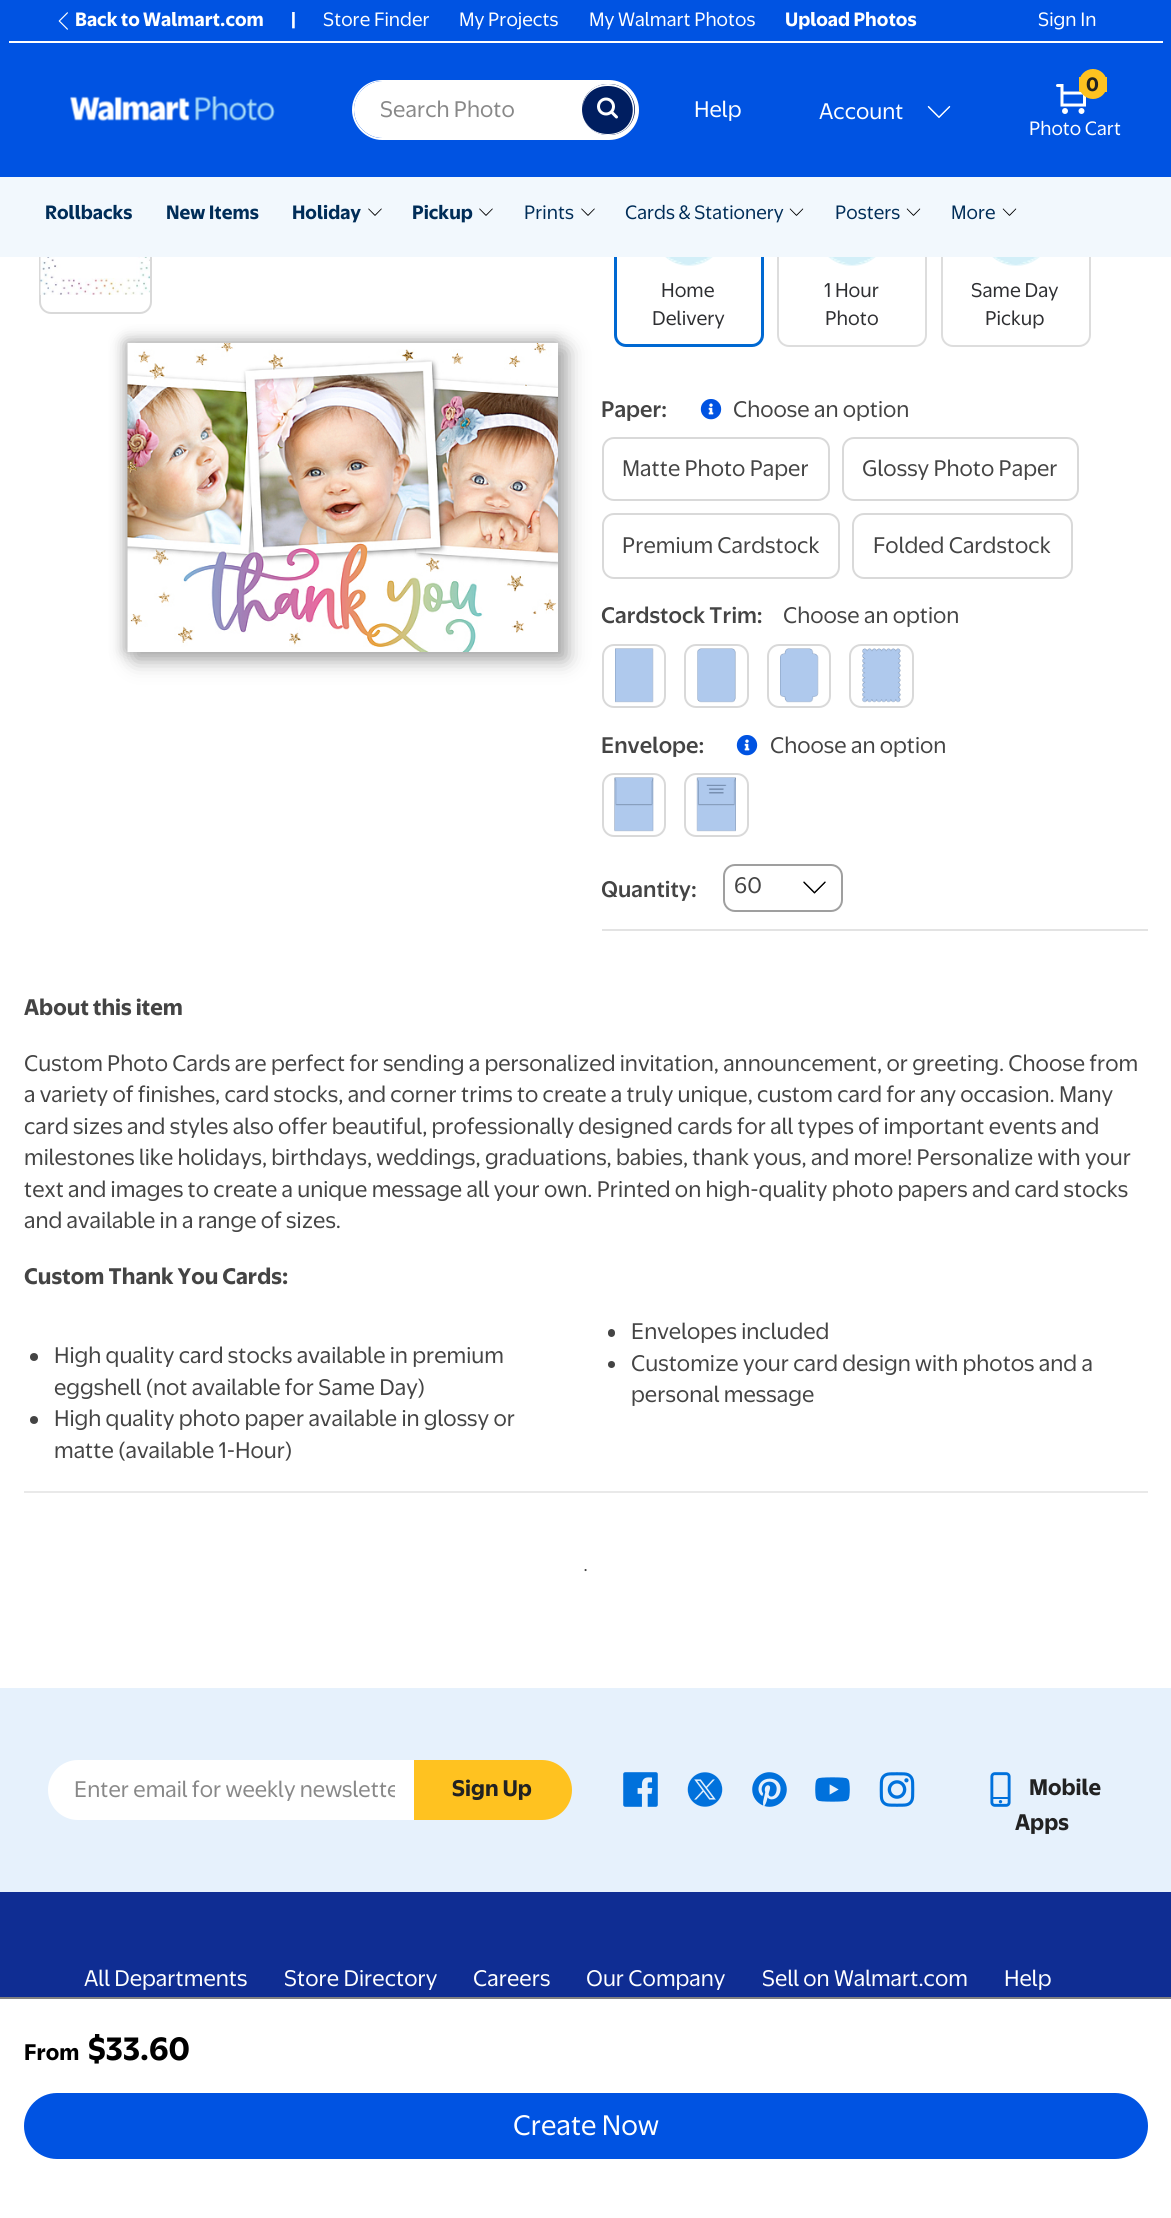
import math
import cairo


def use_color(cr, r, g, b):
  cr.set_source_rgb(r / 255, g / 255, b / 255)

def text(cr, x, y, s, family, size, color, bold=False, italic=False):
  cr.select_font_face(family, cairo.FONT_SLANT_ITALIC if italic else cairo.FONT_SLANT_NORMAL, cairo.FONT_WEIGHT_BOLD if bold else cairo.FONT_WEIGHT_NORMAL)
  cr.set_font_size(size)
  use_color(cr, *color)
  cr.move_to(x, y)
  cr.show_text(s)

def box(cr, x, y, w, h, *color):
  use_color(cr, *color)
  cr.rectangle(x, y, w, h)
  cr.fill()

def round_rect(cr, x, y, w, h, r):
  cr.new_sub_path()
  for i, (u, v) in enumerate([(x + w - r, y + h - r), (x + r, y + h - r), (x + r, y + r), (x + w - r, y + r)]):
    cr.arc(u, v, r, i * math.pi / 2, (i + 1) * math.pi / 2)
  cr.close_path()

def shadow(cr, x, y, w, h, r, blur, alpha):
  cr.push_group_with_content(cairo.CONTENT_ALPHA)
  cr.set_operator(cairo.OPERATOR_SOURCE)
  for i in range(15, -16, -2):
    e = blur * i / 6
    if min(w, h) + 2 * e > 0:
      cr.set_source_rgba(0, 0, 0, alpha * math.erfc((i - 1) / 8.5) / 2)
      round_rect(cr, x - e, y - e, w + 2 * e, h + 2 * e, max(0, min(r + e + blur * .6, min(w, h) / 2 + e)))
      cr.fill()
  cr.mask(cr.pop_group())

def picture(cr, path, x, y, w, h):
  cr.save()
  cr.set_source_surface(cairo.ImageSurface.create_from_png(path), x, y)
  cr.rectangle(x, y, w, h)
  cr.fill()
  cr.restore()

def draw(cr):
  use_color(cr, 255, 255, 255)
  cr.paint()
  round_rect(cr, 615.5, 172.5, 147, 173, 10.5)
  use_color(cr, 0, 104, 210)
  cr.set_line_width(3)
  cr.stroke()
  round_rect(cr, 778, 172, 148, 174, 11)
  use_color(cr, 221, 221, 221)
  cr.set_line_width(2)
  cr.stroke()
  round_rect(cr, 942, 172, 148, 174, 11)
  cr.stroke()
  box(cr, 0, 0, 1171, 177, 0, 83, 226)
  box(cr, 9, 41, 1154, 2, 255, 255, 255)
  picture(cr, "img_01.png", 58, 12, 10, 18)
  picture(cr, "img_02.png", 70, 96, 205, 26)
  cr.new_path()
  cr.move_to(382.5, 81)
  cr.line_to(582, 81)
  cr.line_to(582, 138)
  cr.line_to(382.5, 138)
  cr.curve_to(367, 138, 354, 125, 354, 109.5)
  cr.curve_to(354, 94, 367, 81, 382.5, 81)
  cr.close_path()
  cr.fill()
  cr.set_fill_rule(cairo.FILL_RULE_EVEN_ODD)
  cr.new_path()
  cr.move_to(382, 80)
  cr.line_to(582, 80)
  cr.line_to(582, 140)
  cr.line_to(382, 140)
  cr.curve_to(366, 140, 352, 126, 352, 110)
  cr.curve_to(352, 93, 366, 80, 382, 80)
  cr.close_path()
  cr.move_to(382, 81)
  cr.line_to(582, 81)
  cr.line_to(582, 138)
  cr.line_to(382, 138)
  cr.curve_to(367, 138, 354, 125, 354, 110)
  cr.curve_to(354, 94, 367, 81, 382, 81)
  cr.close_path()
  cr.fill()
  cr.new_path()
  cr.move_to(582, 80)
  cr.line_to(609, 80)
  cr.curve_to(625.5, 80, 639, 93.5, 639, 110)
  cr.curve_to(639, 126.5, 625.5, 140, 609, 140)
  cr.line_to(582, 140)
  cr.close_path()
  cr.fill()
  use_color(cr, 0, 30, 96)
  round_rect(cr, 582, 84, 53, 51, 25.5)
  cr.fill()
  use_color(cr, 255, 255, 255)
  cr.new_path()
  cr.move_to(608, 84)
  cr.curve_to(643, 84, 643, 135, 608, 135)
  cr.curve_to(574, 135, 574, 84, 608, 84)
  cr.close_path()
  cr.move_to(608, 86)
  cr.curve_to(641, 86, 641, 134, 608, 134)
  cr.curve_to(574, 134, 574, 86, 608, 86)
  cr.close_path()
  cr.fill()
  picture(cr, "img_03.png", 597, 97, 21, 22)
  picture(cr, "img_04.png", 927, 106, 24, 12)
  picture(cr, "img_05.png", 1056, 84, 30, 30)
  use_color(cr, 255, 194, 32)
  round_rect(cr, 1079, 69, 28, 30, 14)
  cr.fill()
  box(cr, 1105, 77, 2, 15, 255, 194, 32)
  box(cr, 1079, 77, 2, 15, 255, 194, 32)
  round_rect(cr, 40, 202, 111, 111, 11)
  use_color(cr, 217, 217, 217)
  cr.stroke()
  use_color(cr, 233, 248, 252)
  cr.arc(689, 230, 36, 0, 2 * math.pi)
  cr.fill()
  cr.arc(852, 230, 36, 0, 2 * math.pi)
  cr.fill()
  cr.arc(1016, 230, 36, 0, 2 * math.pi)
  cr.fill()
  box(cr, 0, 177, 1171, 80, 242, 248, 253)
  picture(cr, "img_06.png", 368, 208, 14, 8)
  picture(cr, "img_06.png", 479, 208, 14, 8)
  picture(cr, "img_06.png", 581, 208, 14, 8)
  picture(cr, "img_07.png", 789, 208, 15, 8)
  picture(cr, "img_07.png", 906, 208, 15, 8)
  picture(cr, "img_07.png", 1002, 208, 15, 8)
  picture(cr, "img_08.png", 40, 257, 110, 38)
  use_color(cr, 166, 166, 166)
  shadow(cr, 135, 350, 431, 309, 0, 10.5, 1)
  shadow(cr, 126, 342, 431, 309, 0, 7.5, 1)
  picture(cr, "img_09.png", 127, 343, 431, 309)
  box(cr, 602, 929, 546, 2, 227, 227, 227)
  picture(cr, "img_10.png", 666, 257, 45, 8)
  picture(cr, "img_11.png", 829, 257, 45, 8)
  picture(cr, "img_12.png", 993, 257, 45, 8)
  picture(cr, "img_13.png", 700, 399, 22, 21)
  round_rect(cr, 603, 438, 226, 62, 11)
  use_color(cr, 217, 217, 217)
  cr.stroke()
  round_rect(cr, 843, 438, 235, 62, 11)
  cr.stroke()
  round_rect(cr, 603, 514, 236, 64, 11)
  cr.stroke()
  round_rect(cr, 853, 514, 219, 64, 11)
  cr.stroke()
  round_rect(cr, 603, 645, 62, 62, 11)
  cr.stroke()
  picture(cr, "img_14.png", 615, 648, 39, 55)
  round_rect(cr, 685, 645, 63, 62, 11)
  cr.stroke()
  picture(cr, "img_15.png", 697, 648, 39, 55)
  round_rect(cr, 768, 645, 62, 62, 11)
  cr.stroke()
  picture(cr, "img_16.png", 780, 648, 39, 55)
  round_rect(cr, 850, 645, 63, 62, 11)
  cr.stroke()
  picture(cr, "img_17.png", 862, 648, 39, 55)
  picture(cr, "img_13.png", 736, 735, 22, 21)
  round_rect(cr, 603, 774, 62, 62, 11)
  cr.stroke()
  picture(cr, "img_18.png", 614, 777, 40, 55)
  round_rect(cr, 685, 774, 63, 62, 11)
  cr.stroke()
  picture(cr, "img_19.png", 696, 777, 40, 55)
  round_rect(cr, 724, 865, 118, 46, 11)
  use_color(cr, 159, 159, 159)
  cr.stroke()
  picture(cr, "img_20.png", 803, 881, 23, 13)
  box(cr, 0, 1997, 1171, 2, 128, 128, 128)
  use_color(cr, 0, 83, 226)
  round_rect(cr, 25, 2094, 1122, 64, 32)
  cr.fill_preserve()
  cr.stroke()
  use_color(cr, 68, 68, 68)
  round_rect(cr, 608, 1329, 7, 8, 3.5)
  cr.fill()
  cr.arc(34, 1357, 4, 0, 2 * math.pi)
  cr.fill()
  cr.arc(611.5, 1364.5, 3.5, 0, 2 * math.pi)
  cr.fill()
  cr.arc(34, 1420, 4, 0, 2 * math.pi)
  cr.fill()
  box(cr, 24, 1491, 1124, 2, 233, 233, 233)
  box(cr, 0, 1688, 1171, 204, 230, 241, 252)
  use_color(cr, 255, 255, 255)
  cr.new_path()
  cr.move_to(78, 1761)
  cr.line_to(413, 1761)
  cr.line_to(413, 1819)
  cr.line_to(78, 1819)
  cr.curve_to(62, 1819, 49, 1806, 49, 1790)
  cr.curve_to(49, 1774, 62, 1761, 78, 1761)
  cr.close_path()
  cr.fill_preserve()
  cr.stroke()
  use_color(cr, 255, 194, 32)
  cr.new_path()
  cr.move_to(414, 1760)
  cr.line_to(542, 1760)
  cr.curve_to(558.5, 1760, 572, 1773.5, 572, 1790)
  cr.curve_to(572, 1806.5, 558.5, 1820, 542, 1820)
  cr.line_to(414, 1820)
  cr.close_path()
  cr.fill()
  picture(cr, "img_21.png", 623, 1772, 35, 35)
  picture(cr, "img_22.png", 687, 1772, 36, 35)
  picture(cr, "img_23.png", 752, 1772, 35, 35)
  picture(cr, "img_24.png", 815, 1777, 35, 25)
  picture(cr, "img_25.png", 879, 1772, 36, 35)
  picture(cr, "img_26.png", 990, 1772, 21, 35)
  box(cr, 0, 1892, 1171, 105, 15, 45, 147)
  text(cr, 75, 26, "Back to Walmart.com", "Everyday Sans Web", 18, (255, 255, 255), bold=True)
  text(cr, 291, 26, "|", "Everyday Sans Web", 18, (255, 255, 255), bold=True)
  text(cr, 323, 26, "Store Finder", "Everyday Sans Web", 18, (255, 255, 255))
  text(cr, 459, 26, "My Projects", "Everyday Sans Web", 18, (255, 255, 255))
  text(cr, 589, 26, "My Walmart Photos", "Everyday Sans Web", 18, (255, 255, 255))
  text(cr, 785, 26, "Upload Photos", "Everyday Sans Web", 18, (255, 255, 255), bold=True)
  text(cr, 1038, 26, "Sign In", "Everyday Sans Web", 18, (255, 255, 255))
  text(cr, 380, 117, "Search Photo", "Everyday Sans Web", 21, (136, 136, 136))
  text(cr, 694, 117, "Help", "Everyday Sans Web", 21, (255, 255, 255))
  text(cr, 819, 119, "Account", "Everyday Sans Web", 21, (255, 255, 255))
  text(cr, 1086, 91, "0", "Everyday Sans Web", 18, (34, 34, 34), bold=True)
  text(cr, 1029, 135, "Photo Cart", "Everyday Sans Web", 18, (255, 255, 255))
  text(cr, 45, 219, "Rollbacks", "Everyday Sans Web", 18, (0, 45, 88), bold=True)
  text(cr, 166, 219, "New Items", "Everyday Sans Web", 18, (0, 45, 88), bold=True)
  text(cr, 292, 219, "Holiday", "Everyday Sans Web", 18, (0, 45, 88), bold=True)
  text(cr, 412, 219, "Pickup", "Everyday Sans Web", 18, (0, 45, 88), bold=True)
  text(cr, 524, 219, "Prints", "Everyday Sans Web", 18, (0, 45, 88))
  text(cr, 625, 219, "Cards & Stationery", "Everyday Sans Web", 18, (0, 45, 88))
  text(cr, 835, 219, "Posters", "Everyday Sans Web", 18, (0, 45, 88))
  text(cr, 951, 219, "More", "Everyday Sans Web", 18, (0, 45, 88))
  text(cr, 661, 297, "Home", "Everyday Sans Web", 18.5, (46, 47, 50))
  text(cr, 652, 325, "Delivery", "Everyday Sans Web", 18.5, (46, 47, 50))
  text(cr, 824, 297, "1 Hour", "Everyday Sans Web", 18.5, (46, 47, 50))
  text(cr, 825, 325, "Photo", "Everyday Sans Web", 18.5, (46, 47, 50))
  text(cr, 971, 297, "Same Day", "Everyday Sans Web", 18.5, (46, 47, 50))
  text(cr, 985, 325, "Pickup", "Everyday Sans Web", 18.5, (46, 47, 50))
  text(cr, 601, 417, "Paper:", "Everyday Sans Web Medium", 21, (68, 68, 68))
  text(cr, 733, 417, "Choose an option", "Everyday Sans Web", 21, (68, 68, 68))
  text(cr, 622, 476, "Matte Photo Paper", "Everyday Sans Web", 21, (68, 68, 68))
  text(cr, 862, 476, "Glossy Photo Paper", "Everyday Sans Web", 21, (68, 68, 68))
  text(cr, 622, 553, "Premium Cardstock", "Everyday Sans Web", 21, (68, 68, 68))
  text(cr, 873, 553, "Folded Cardstock", "Everyday Sans Web", 21, (68, 68, 68))
  text(cr, 601, 623, "Cardstock Trim:", "Everyday Sans Web Medium", 21, (68, 68, 68))
  text(cr, 783, 623, "Choose an option", "Everyday Sans Web", 21, (68, 68, 68))
  text(cr, 601, 753, "Envelope:", "Everyday Sans Web Medium", 21, (68, 68, 68))
  text(cr, 770, 753, "Choose an option", "Everyday Sans Web", 21, (68, 68, 68))
  text(cr, 601, 897, "Quantity:", "Everyday Sans Web Medium", 21, (68, 68, 68))
  text(cr, 734, 893, "60", "Everyday Sans Web", 21, (68, 68, 68))
  text(cr, 24, 2060, "From", "Everyday Sans Web", 21, (0, 0, 0), bold=True)
  text(cr, 88, 2060, "$33.60", "Everyday Sans Web", 30, (0, 0, 0), bold=True)
  text(cr, 513, 2135, "Create Now", "Everyday Sans Web", 26.25, (255, 255, 255))
  text(cr, 24, 1015, "About this item", "Everyday Sans Web", 21, (68, 68, 68), bold=True)
  text(cr, 24, 1071, "Custom Photo Cards are perfect for sending a personalized invitation, announcement, or greeting. Choose from", "Everyday Sans Web", 21, (68, 68, 68))
  text(cr, 24, 1102, "a variety of finishes, card stocks, and corner trims to create a truly unique, custom card for any occasion. Many", "Everyday Sans Web", 21, (68, 68, 68))
  text(cr, 24, 1134, "card sizes and styles also offer beautiful, professionally designed cards for all types of important events and", "Everyday Sans Web", 21, (68, 68, 68))
  text(cr, 24, 1165, "milestones like holidays, birthdays, weddings, graduations, babies, thank yous, and more! Personalize with your", "Everyday Sans Web", 21, (68, 68, 68))
  text(cr, 24, 1197, "text and images to create a unique message all your own. Printed on high-quality photo papers and card stocks", "Everyday Sans Web", 21, (68, 68, 68))
  text(cr, 24, 1228, "and available in a range of sizes.", "Everyday Sans Web", 21, (68, 68, 68))
  text(cr, 24, 1284, "Custom Thank You Cards:", "Everyday Sans Web", 21, (68, 68, 68), bold=True)
  text(cr, 631, 1339, "Envelopes included", "Everyday Sans Web", 21, (68, 68, 68))
  text(cr, 54, 1363, "High quality card stocks available in premium", "Everyday Sans Web", 21, (68, 68, 68))
  text(cr, 54, 1395, "eggshell (not available for Same Day)", "Everyday Sans Web", 21, (68, 68, 68))
  text(cr, 631, 1371, "Customize your card design with photos and a", "Everyday Sans Web", 21, (68, 68, 68))
  text(cr, 631, 1402, "personal message", "Everyday Sans Web", 21, (68, 68, 68))
  text(cr, 54, 1426, "High quality photo paper available in glossy or", "Everyday Sans Web", 21, (68, 68, 68))
  text(cr, 54, 1458, "matte (available 1-Hour)", "Everyday Sans Web", 21, (68, 68, 68))
  text(cr, 584, 1573, "•", "Liberation Serif", 9, (68, 68, 68))
  cr.save()
  cr.set_fill_rule(cairo.FILL_RULE_WINDING)
  cr.rectangle(74, 1776, 321, 27)
  cr.clip()
  text(cr, 74, 1797, "Enter email for weekly newslette", "Everyday Sans Web", 21, (136, 136, 136))
  cr.restore()
  text(cr, 452, 1796, "Sign Up", "Everyday Sans Web", 21, (34, 34, 34), bold=True)
  text(cr, 1029, 1795, "Mobile", "Everyday Sans Web", 21, (34, 34, 34), bold=True)
  text(cr, 1015, 1830, "Apps", "Everyday Sans Web", 21, (34, 34, 34), bold=True)
  text(cr, 84, 1986, "All Departments", "Everyday Sans Web", 21, (255, 255, 255))
  text(cr, 284, 1986, "Store Directory", "Everyday Sans Web", 21, (255, 255, 255))
  text(cr, 473, 1986, "Careers", "Everyday Sans Web", 21, (255, 255, 255))
  text(cr, 586, 1986, "Our Company", "Everyday Sans Web", 21, (255, 255, 255))
  text(cr, 762, 1986, "Sell on Walmart.com", "Everyday Sans Web", 21, (255, 255, 255))
  text(cr, 1004, 1986, "Help", "Everyday Sans Web", 21, (255, 255, 255))


surface = cairo.ImageSurface(cairo.FORMAT_RGB24, 1171, 2218)
cr = cairo.Context(surface)
options = cairo.FontOptions()
options.set_hint_metrics(cairo.HINT_METRICS_OFF)
options.set_hint_style(cairo.HINT_STYLE_NONE)
cr.set_font_options(options)
cr.set_miter_limit(4)
draw(cr)
surface.write_to_png("out.png")
